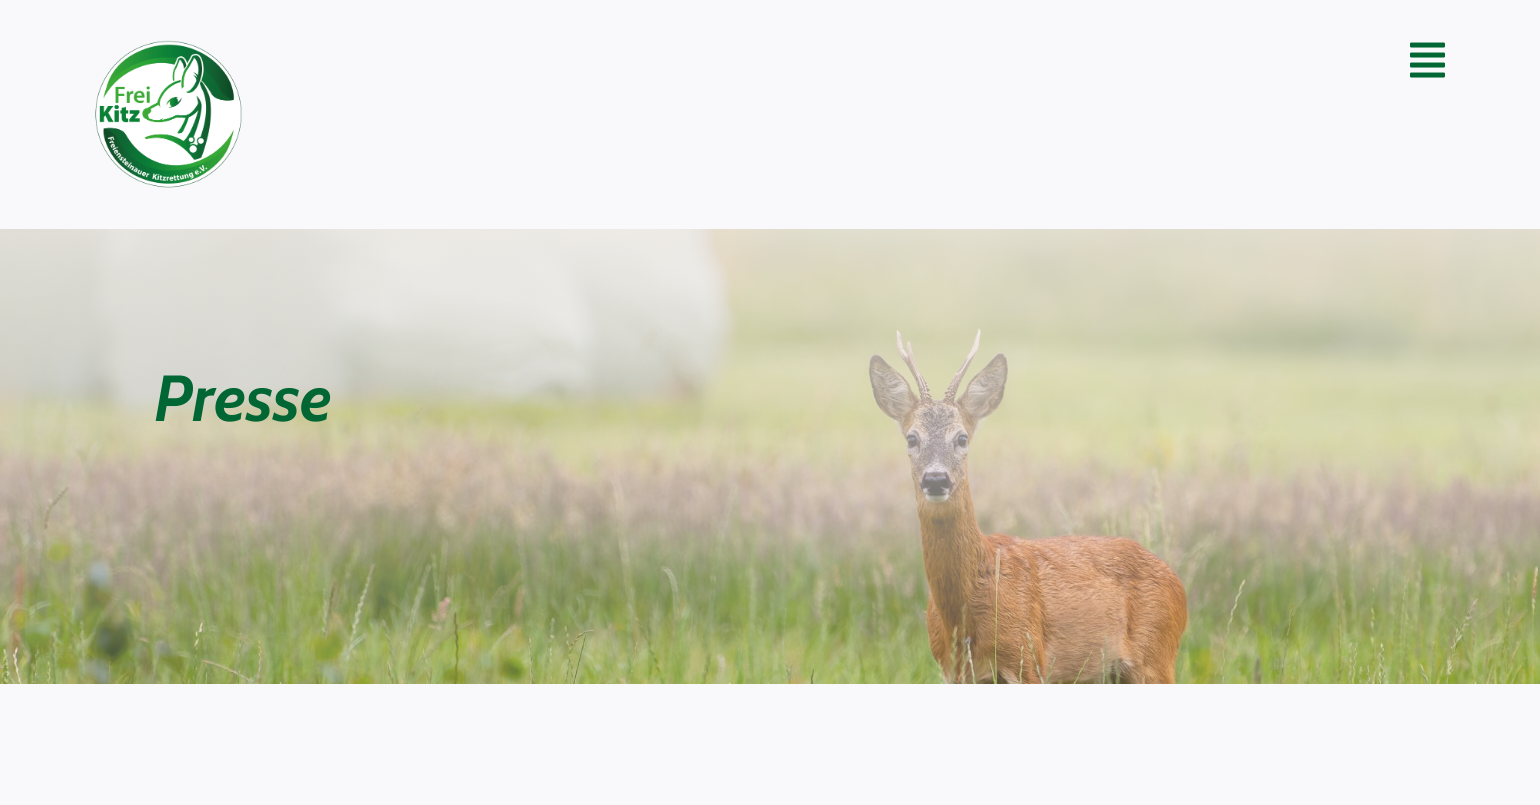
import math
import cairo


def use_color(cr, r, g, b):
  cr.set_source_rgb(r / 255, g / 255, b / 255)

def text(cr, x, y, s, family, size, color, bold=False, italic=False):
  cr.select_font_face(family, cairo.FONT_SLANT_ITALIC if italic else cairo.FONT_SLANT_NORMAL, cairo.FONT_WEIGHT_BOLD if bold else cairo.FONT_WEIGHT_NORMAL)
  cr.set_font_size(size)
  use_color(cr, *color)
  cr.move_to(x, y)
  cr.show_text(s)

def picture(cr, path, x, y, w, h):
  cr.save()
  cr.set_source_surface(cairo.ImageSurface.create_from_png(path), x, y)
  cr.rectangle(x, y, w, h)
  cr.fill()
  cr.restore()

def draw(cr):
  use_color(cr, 249, 249, 251)
  cr.paint()
  picture(cr, "img_01.png", 95, 40, 147, 148)
  picture(cr, "img_02.png", 1410, 42, 35, 36)
  picture(cr, "img_03.png", 0, 229, 1540, 455)
  text(cr, 154, 421, "Presse", "Cabin", 65, (0, 102, 51), bold=True, italic=True)


surface = cairo.ImageSurface(cairo.FORMAT_RGB24, 1540, 805)
cr = cairo.Context(surface)
options = cairo.FontOptions()
options.set_hint_metrics(cairo.HINT_METRICS_OFF)
options.set_hint_style(cairo.HINT_STYLE_NONE)
cr.set_font_options(options)
cr.set_miter_limit(4)
draw(cr)
surface.write_to_png("out.png")
